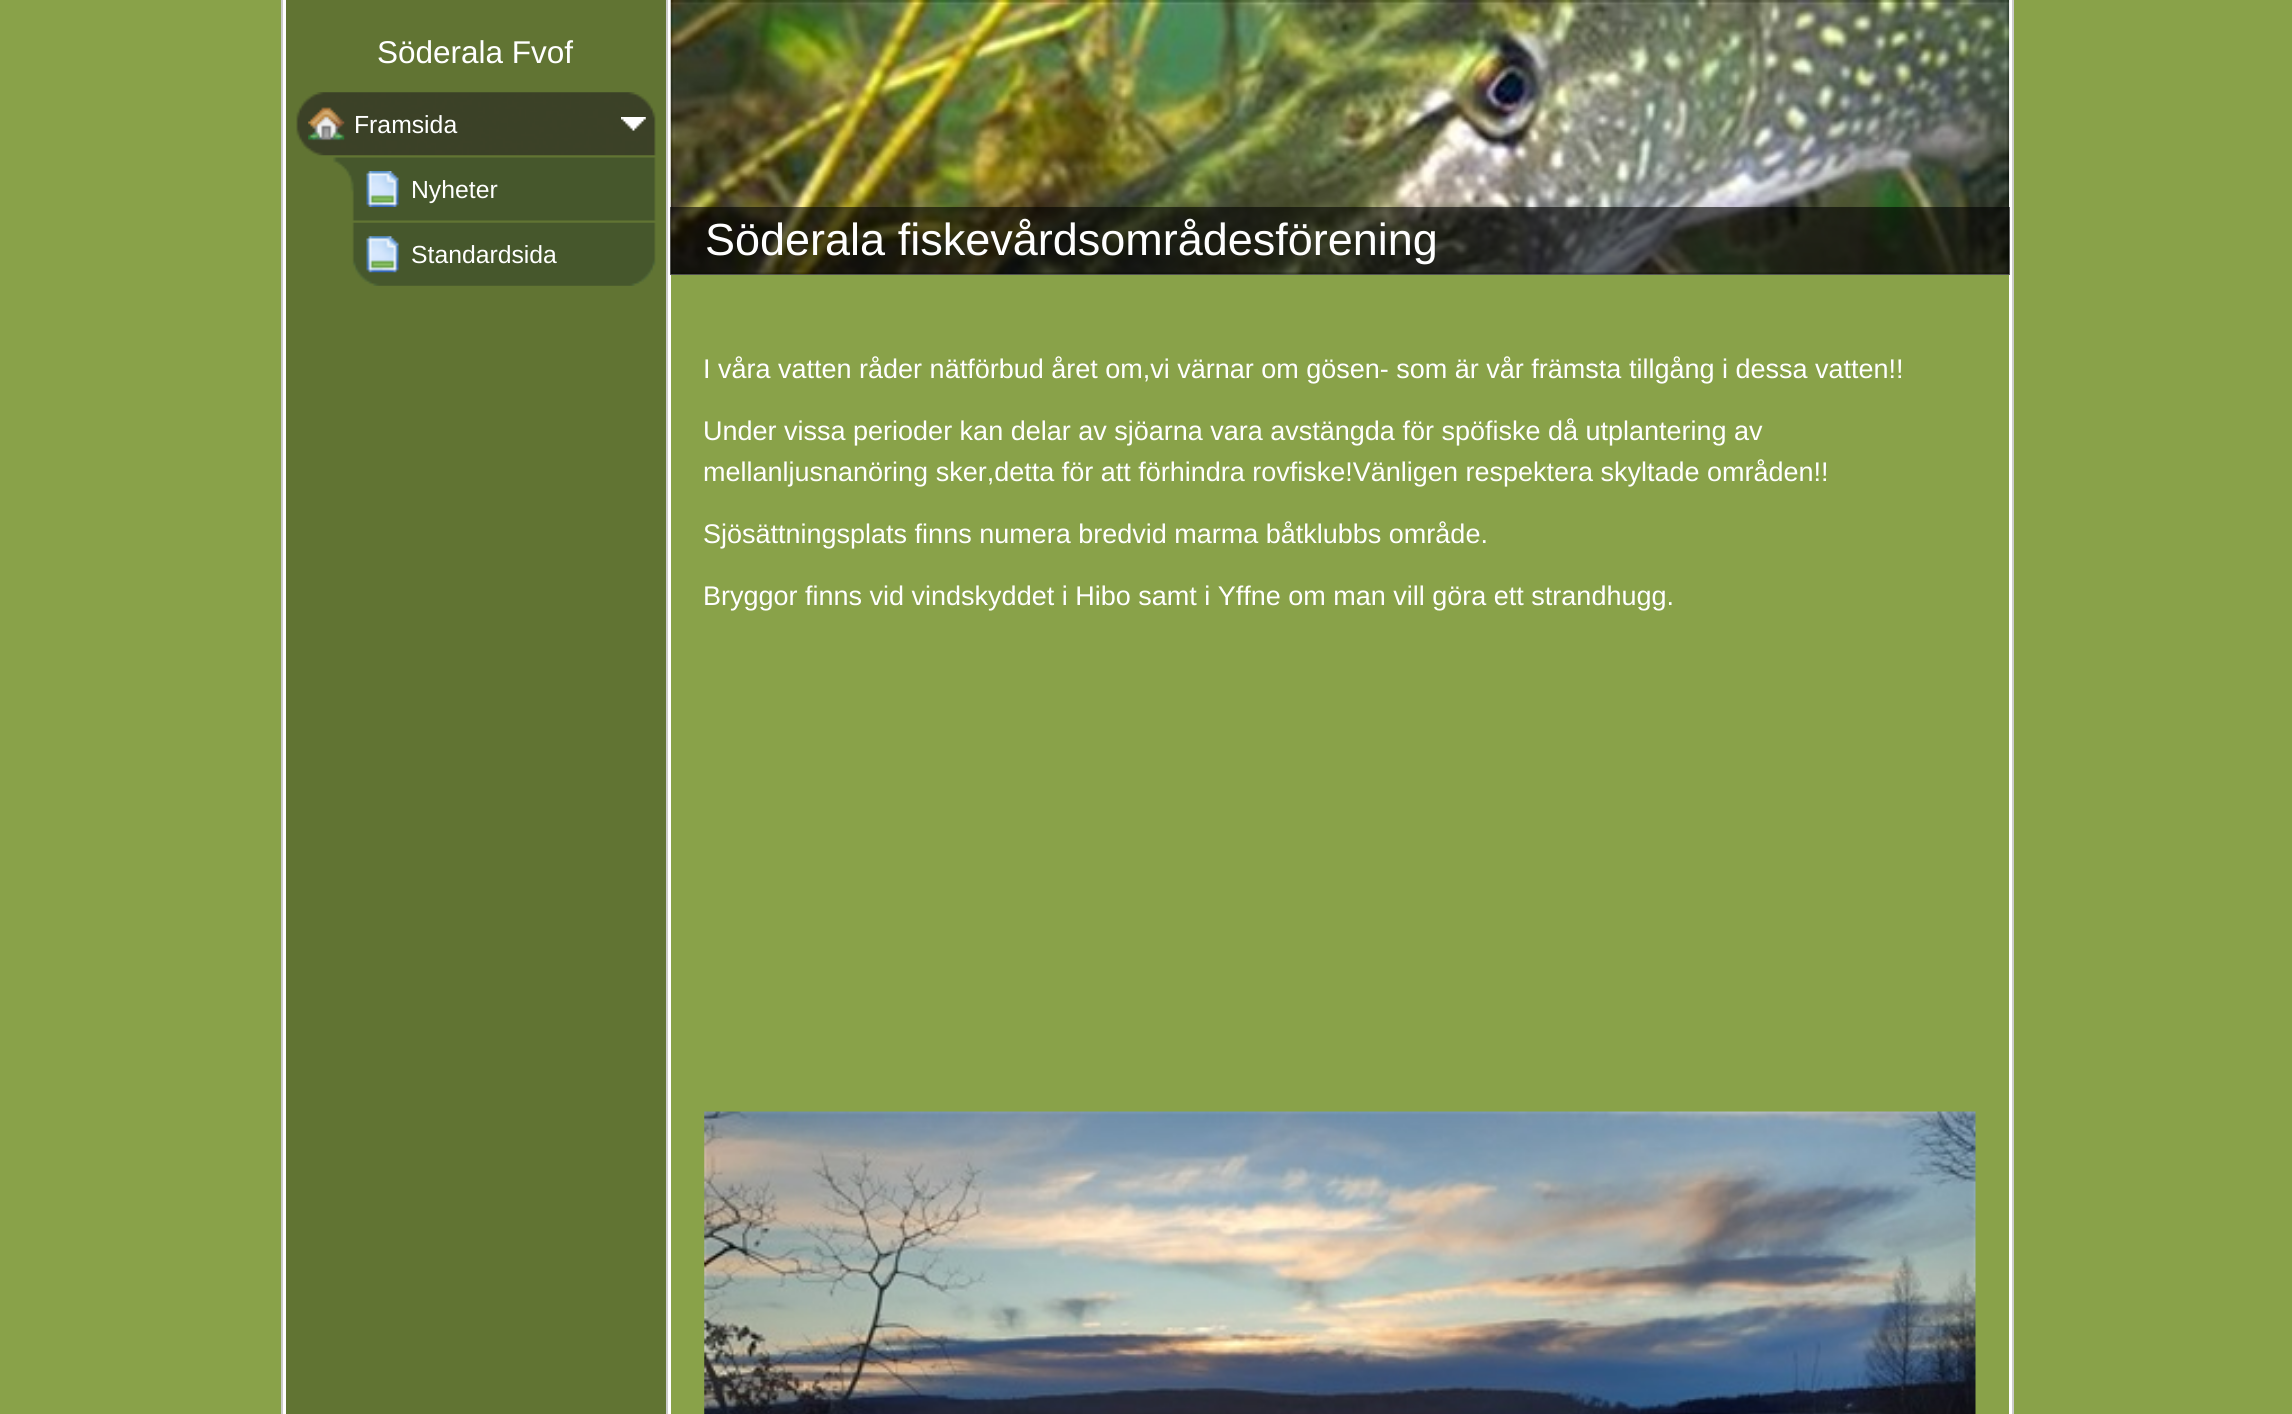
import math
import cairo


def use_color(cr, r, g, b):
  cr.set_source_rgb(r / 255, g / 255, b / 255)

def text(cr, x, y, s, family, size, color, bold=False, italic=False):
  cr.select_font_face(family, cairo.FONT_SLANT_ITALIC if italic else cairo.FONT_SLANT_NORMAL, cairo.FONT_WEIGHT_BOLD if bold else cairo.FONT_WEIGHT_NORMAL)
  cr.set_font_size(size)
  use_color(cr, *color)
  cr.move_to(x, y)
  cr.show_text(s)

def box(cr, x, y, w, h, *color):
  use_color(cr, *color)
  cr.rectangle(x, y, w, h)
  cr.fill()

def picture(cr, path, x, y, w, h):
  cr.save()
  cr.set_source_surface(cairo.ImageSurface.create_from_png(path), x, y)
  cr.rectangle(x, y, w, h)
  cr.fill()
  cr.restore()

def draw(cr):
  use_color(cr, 137, 162, 73)
  cr.paint()
  box(cr, 283, 0, 1729, 1414, 255, 255, 255)
  box(cr, 281, 0, 2, 1414, 204, 204, 204)
  box(cr, 286, 0, 380, 1414, 97, 116, 51)
  picture(cr, "img_01.png", 296, 92, 360, 64)
  picture(cr, "img_02.png", 308, 107, 37, 34)
  picture(cr, "img_03.png", 621, 117, 25, 14)
  picture(cr, "img_04.png", 333, 157, 323, 64)
  picture(cr, "img_05.png", 366, 171, 33, 36)
  picture(cr, "img_06.png", 352, 222, 304, 64)
  picture(cr, "img_07.png", 366, 236, 33, 37)
  box(cr, 666, 0, 2, 1414, 204, 204, 204)
  box(cr, 2012, 0, 2, 1414, 204, 204, 204)
  box(cr, 671, 275, 1338, 1139, 137, 162, 73)
  picture(cr, "img_08.png", 670, 0, 1340, 275)
  cr.set_source_rgba(0, 0, 0, 0.6)
  cr.rectangle(670, 207, 1340, 68)
  cr.fill()
  picture(cr, "img_09.png", 704, 1111, 1272, 303)
  text(cr, 377, 63, "Söderala Fvof", "Liberation Sans", 31.5, (255, 255, 255))
  text(cr, 354, 133, "Framsida", "Liberation Sans", 24.75, (255, 255, 255))
  text(cr, 411, 198, "Nyheter", "Liberation Sans", 24.75, (255, 255, 255))
  text(cr, 411, 263, "Standardsida", "Liberation Sans", 24.75, (255, 255, 255))
  text(cr, 705, 255, "Söderala fiskevårdsområdesförening", "Liberation Sans", 45, (255, 255, 255))
  text(cr, 703, 378, "I våra vatten råder nätförbud året om,vi värnar om gösen- som är vår främsta tillgång i dessa vatten!!", "Liberation Sans", 27, (255, 255, 255))
  text(cr, 703, 440, "Under vissa perioder kan delar av sjöarna vara avstängda för spöfiske då utplantering av", "Liberation Sans", 27, (255, 255, 255))
  text(cr, 703, 481, "mellanljusnanöring sker,detta för att förhindra rovfiske!Vänligen respektera skyltade områden!!", "Liberation Sans", 27, (255, 255, 255))
  text(cr, 703, 543, "Sjösättningsplats finns numera bredvid marma båtklubbs område.", "Liberation Sans", 27, (255, 255, 255))
  text(cr, 703, 605, "Bryggor finns vid vindskyddet i Hibo samt i Yffne om man vill göra ett strandhugg.", "Liberation Sans", 27, (255, 255, 255))


surface = cairo.ImageSurface(cairo.FORMAT_RGB24, 2292, 1414)
cr = cairo.Context(surface)
options = cairo.FontOptions()
options.set_hint_metrics(cairo.HINT_METRICS_OFF)
options.set_hint_style(cairo.HINT_STYLE_NONE)
cr.set_font_options(options)
cr.set_miter_limit(4)
draw(cr)
surface.write_to_png("out.png")
